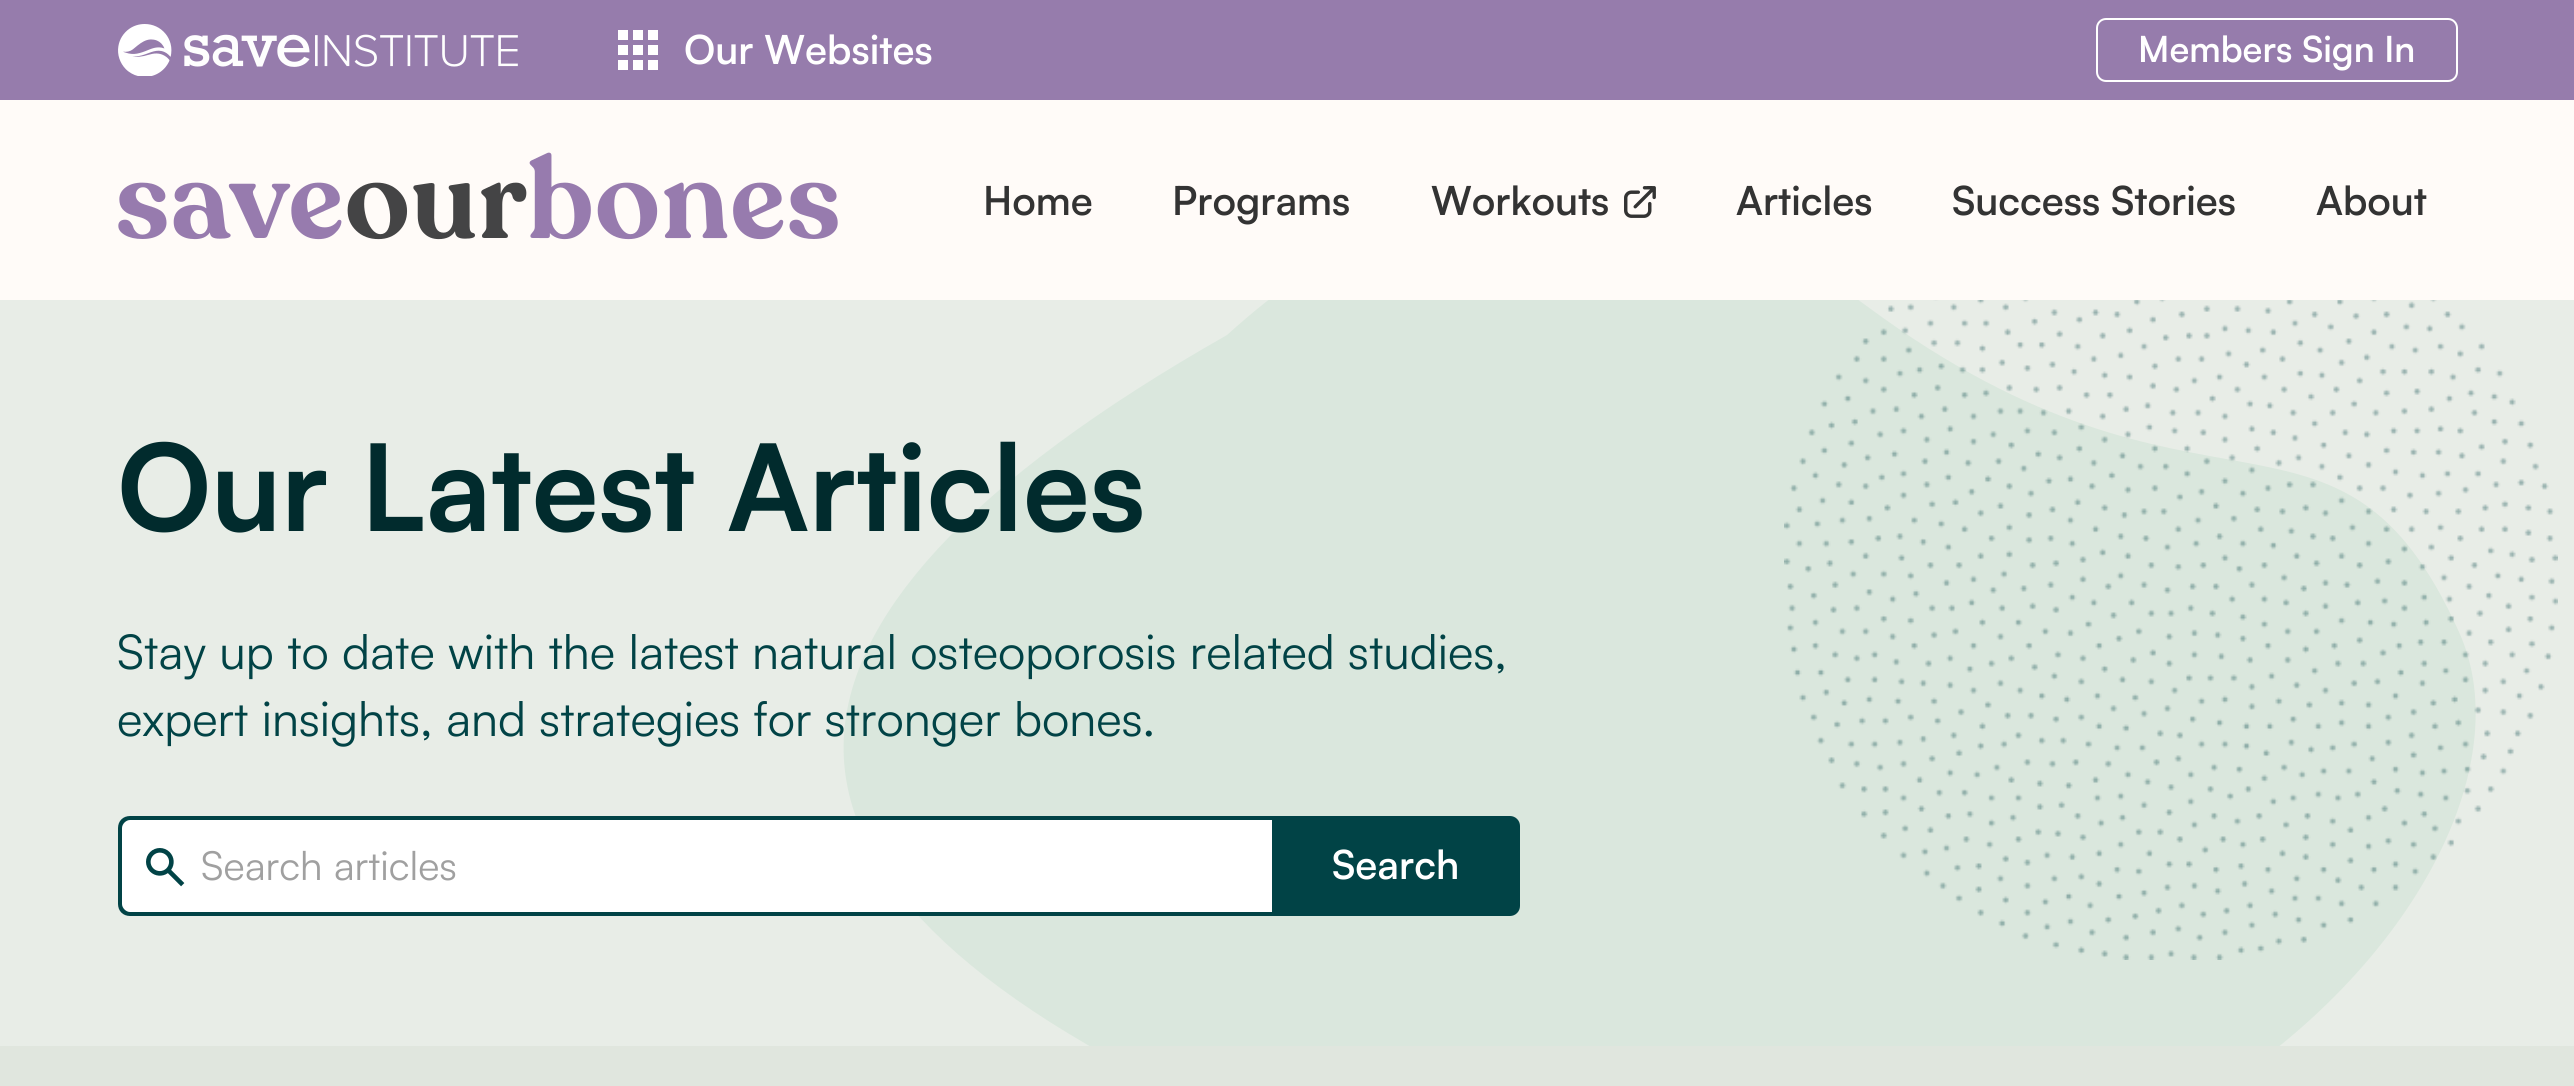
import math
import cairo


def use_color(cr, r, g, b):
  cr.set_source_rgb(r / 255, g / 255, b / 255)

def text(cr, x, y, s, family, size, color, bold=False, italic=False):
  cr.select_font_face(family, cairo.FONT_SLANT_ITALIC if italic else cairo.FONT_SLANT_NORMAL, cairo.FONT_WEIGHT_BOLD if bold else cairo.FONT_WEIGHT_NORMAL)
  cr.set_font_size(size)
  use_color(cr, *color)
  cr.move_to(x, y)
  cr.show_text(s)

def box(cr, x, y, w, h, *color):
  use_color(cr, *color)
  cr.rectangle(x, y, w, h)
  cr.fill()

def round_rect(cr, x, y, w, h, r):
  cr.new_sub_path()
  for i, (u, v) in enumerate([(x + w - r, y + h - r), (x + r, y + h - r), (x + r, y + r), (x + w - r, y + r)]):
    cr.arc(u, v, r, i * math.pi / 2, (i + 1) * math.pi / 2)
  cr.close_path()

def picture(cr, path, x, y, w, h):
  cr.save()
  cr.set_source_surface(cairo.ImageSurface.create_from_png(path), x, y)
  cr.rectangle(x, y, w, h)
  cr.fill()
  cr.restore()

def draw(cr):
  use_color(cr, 232, 237, 231)
  cr.paint()
  use_color(cr, 218, 231, 221)
  cr.set_fill_rule(cairo.FILL_RULE_EVEN_ODD)
  cr.new_path()
  cr.move_to(1227, 335)
  cr.curve_to(1431, 150, 1644, 141, 1868, 307)
  cr.curve_to(2204, 555, 2339, 365, 2459, 632)
  cr.curve_to(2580, 899, 2029, 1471, 1241, 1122)
  cr.curve_to(716, 890, 711, 628, 1227, 335)
  cr.close_path()
  cr.fill()
  box(cr, 0, 100, 2574, 200, 255, 251, 248)
  box(cr, 0, 0, 2574, 100, 150, 124, 172)
  picture(cr, "img_01.png", 118, 24, 400, 52)
  picture(cr, "img_02.png", 618, 30, 40, 40)
  round_rect(cr, 2097, 19, 360, 62, 9)
  use_color(cr, 255, 255, 255)
  cr.stroke()
  picture(cr, "img_03.png", 118, 152, 720, 88)
  picture(cr, "img_04.png", 1624, 186, 32, 32)
  cr.new_path()
  cr.move_to(130, 816)
  cr.line_to(1272, 816)
  cr.line_to(1272, 916)
  cr.line_to(130, 916)
  cr.curve_to(123.5, 916, 118, 910.5, 118, 904)
  cr.line_to(118, 828)
  cr.curve_to(118, 821.5, 123.5, 816, 130, 816)
  cr.close_path()
  cr.fill()
  picture(cr, "img_05.png", 146, 848, 39, 39)
  use_color(cr, 1, 67, 70)
  cr.new_path()
  cr.move_to(130, 816)
  cr.line_to(1272, 816)
  cr.line_to(1272, 916)
  cr.line_to(130, 916)
  cr.curve_to(123, 916, 118, 911, 118, 904)
  cr.line_to(118, 828)
  cr.curve_to(118, 821, 123, 816, 130, 816)
  cr.close_path()
  cr.move_to(130, 820)
  cr.line_to(1272, 820)
  cr.line_to(1272, 912)
  cr.line_to(130, 912)
  cr.curve_to(126, 912, 122, 908, 122, 904)
  cr.line_to(122, 828)
  cr.curve_to(122, 824, 126, 820, 130, 820)
  cr.close_path()
  cr.fill()
  cr.new_path()
  cr.move_to(1272, 816)
  cr.line_to(1510, 816)
  cr.curve_to(1515.5, 816, 1520, 820.5, 1520, 826)
  cr.line_to(1520, 906)
  cr.curve_to(1520, 911.5, 1515.5, 916, 1510, 916)
  cr.line_to(1272, 916)
  cr.close_path()
  cr.fill()
  picture(cr, "img_06.png", 1784, 300, 774, 660)
  box(cr, 0, 1046, 2574, 40, 224, 230, 222)
  text(cr, 684, 64, "Our Websites", "Satoshi SemiBold", 40, (255, 255, 255))
  text(cr, 2138, 62, "Members Sign In", "Satoshi SemiBold", 36, (255, 255, 255))
  text(cr, 983, 215, "Home", "Satoshi SemiBold", 40, (51, 51, 51))
  text(cr, 1172, 215, "Programs", "Satoshi SemiBold", 40, (51, 51, 51))
  text(cr, 1431, 215, "Workouts", "Satoshi SemiBold", 40, (51, 51, 51))
  text(cr, 1736, 215, "Articles", "Satoshi SemiBold", 40, (51, 51, 51))
  text(cr, 1952, 215, "Success Stories", "Satoshi SemiBold", 40, (51, 51, 51))
  text(cr, 2316, 215, "About", "Satoshi SemiBold", 40, (51, 51, 51))
  text(cr, 117, 531, "Our Latest Articles", "Satoshi", 120, (1, 43, 45), bold=True)
  text(cr, 117, 669, "Stay up to date with the latest natural osteoporosis related studies,", "Satoshi", 48, (1, 67, 70))
  text(cr, 117, 736, "expert insights, and strategies for stronger bones.", "Satoshi", 48, (1, 67, 70))
  text(cr, 201, 880, "Search articles", "Satoshi", 40, (160, 160, 160))
  text(cr, 1332, 879, "Search", "Satoshi SemiBold", 40, (255, 255, 255))


surface = cairo.ImageSurface(cairo.FORMAT_RGB24, 2574, 1086)
cr = cairo.Context(surface)
options = cairo.FontOptions()
options.set_hint_metrics(cairo.HINT_METRICS_OFF)
options.set_hint_style(cairo.HINT_STYLE_NONE)
cr.set_font_options(options)
cr.set_miter_limit(4)
draw(cr)
surface.write_to_png("out.png")
